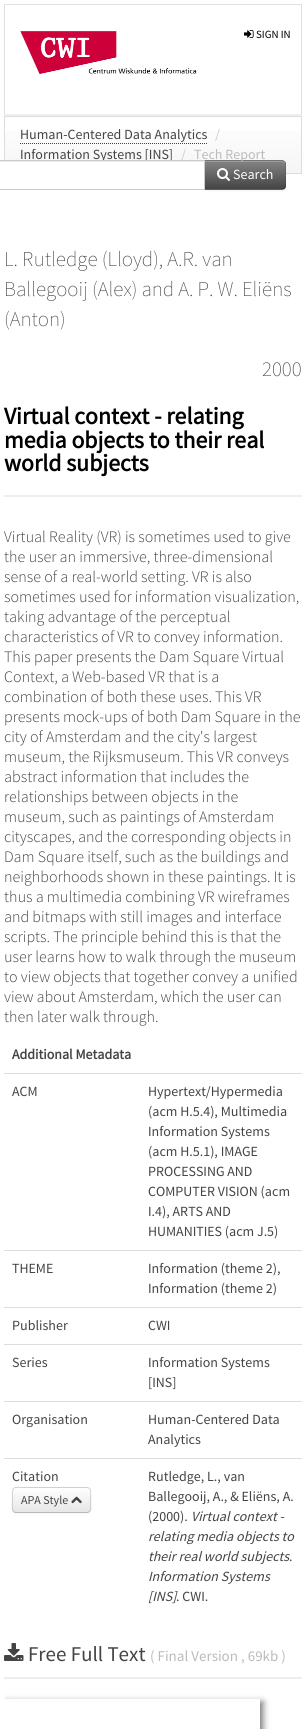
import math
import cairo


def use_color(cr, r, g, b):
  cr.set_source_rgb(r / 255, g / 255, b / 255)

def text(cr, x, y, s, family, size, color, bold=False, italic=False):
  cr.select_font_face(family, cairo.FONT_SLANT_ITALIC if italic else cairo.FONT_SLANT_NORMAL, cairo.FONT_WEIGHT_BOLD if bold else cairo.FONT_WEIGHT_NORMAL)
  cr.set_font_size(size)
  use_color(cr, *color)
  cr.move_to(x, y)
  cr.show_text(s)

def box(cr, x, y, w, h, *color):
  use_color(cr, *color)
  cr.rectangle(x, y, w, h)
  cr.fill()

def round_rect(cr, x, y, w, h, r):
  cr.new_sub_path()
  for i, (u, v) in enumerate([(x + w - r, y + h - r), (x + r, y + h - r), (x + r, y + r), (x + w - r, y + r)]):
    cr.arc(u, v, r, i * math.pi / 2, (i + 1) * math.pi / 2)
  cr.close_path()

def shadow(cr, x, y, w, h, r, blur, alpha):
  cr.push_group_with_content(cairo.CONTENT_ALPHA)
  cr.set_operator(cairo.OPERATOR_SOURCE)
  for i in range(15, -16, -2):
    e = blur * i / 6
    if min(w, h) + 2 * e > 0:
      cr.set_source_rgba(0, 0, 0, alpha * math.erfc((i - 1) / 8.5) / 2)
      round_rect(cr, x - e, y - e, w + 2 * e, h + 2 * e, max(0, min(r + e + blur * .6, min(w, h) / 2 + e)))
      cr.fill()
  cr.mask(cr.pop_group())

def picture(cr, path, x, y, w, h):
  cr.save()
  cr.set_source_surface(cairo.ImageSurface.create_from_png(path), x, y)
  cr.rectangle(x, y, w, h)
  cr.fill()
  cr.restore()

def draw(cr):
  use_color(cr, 255, 255, 255)
  cr.paint()
  box(cr, 4, 4, 298, 1, 224, 224, 224)
  cr.new_path()
  cr.move_to(302, 4)
  cr.line_to(302, 116)
  cr.line_to(301, 114)
  cr.line_to(301, 5)
  cr.close_path()
  cr.fill()
  use_color(cr, 238, 238, 238)
  cr.new_path()
  cr.move_to(302, 116)
  cr.line_to(4, 116)
  cr.line_to(5, 114)
  cr.line_to(301, 114)
  cr.close_path()
  cr.fill()
  use_color(cr, 224, 224, 224)
  cr.new_path()
  cr.move_to(4, 116)
  cr.line_to(4, 4)
  cr.line_to(5, 5)
  cr.line_to(5, 114)
  cr.close_path()
  cr.fill()
  picture(cr, "img_01.png", 20, 31, 177, 44)
  picture(cr, "img_02.png", 244, 30, 10, 8)
  gradient = cairo.LinearGradient(153, 117, 153, 173)
  gradient.add_color_stop_rgba(0, 1, 1, 1, 1)
  gradient.add_color_stop_rgba(1, 0.961, 0.961, 0.961, 1)
  cr.set_source(gradient)
  cr.rectangle(5, 131, 296, 42)
  cr.fill()
  cr.rectangle(4.5, 116.5, 297, 57)
  use_color(cr, 221, 221, 221)
  cr.set_line_width(1)
  cr.stroke()
  cr.new_path()
  cr.move_to(20, 143.5)
  cr.line_to(207, 143.5)
  use_color(cr, 68, 68, 68)
  cr.set_dash([1, 1])
  cr.stroke()
  use_color(cr, 0, 0, 0)
  shadow(cr, 204, 161, 82, 30, 4, 1, 0.05)
  box(cr, 4, 162, 200, 26, 255, 255, 255)
  use_color(cr, 127, 127, 127)
  cr.new_path()
  cr.move_to(204, 160)
  cr.line_to(282, 160)
  cr.curve_to(284, 160, 286, 162, 286, 164)
  cr.line_to(286, 186)
  cr.curve_to(286, 188, 284, 190, 282, 190)
  cr.line_to(204, 190)
  cr.close_path()
  cr.fill()
  cr.save()
  cr.new_path()
  cr.move_to(204, 160)
  cr.line_to(282, 160)
  cr.curve_to(284, 160, 286, 162, 286, 164)
  cr.line_to(286, 186)
  cr.curve_to(286, 188, 284, 190, 282, 190)
  cr.line_to(204, 190)
  cr.close_path()
  cr.clip()
  gradient = cairo.LinearGradient(245, 161, 245, 189)
  gradient.add_color_stop_rgba(0, 0.518, 0.518, 0.518, 1)
  gradient.add_color_stop_rgba(1, 0.267, 0.267, 0.267, 1)
  cr.set_source(gradient)
  cr.rectangle(205, 161, 81, 28)
  cr.fill()
  cr.restore()
  use_color(cr, 156, 156, 156)
  cr.new_path()
  cr.move_to(205, 162)
  cr.line_to(282, 162)
  cr.curve_to(284, 162, 285, 163, 285, 165)
  cr.line_to(285, 164)
  cr.curve_to(285, 162, 284, 161, 282, 161)
  cr.line_to(205, 161)
  cr.close_path()
  cr.fill()
  cr.set_source_rgba(0, 0, 0, 0.1)
  cr.new_path()
  cr.move_to(204, 160)
  cr.line_to(205, 161)
  cr.line_to(283, 161)
  cr.line_to(284, 162)
  cr.line_to(285, 161)
  cr.line_to(282, 160)
  cr.close_path()
  cr.fill()
  cr.new_path()
  cr.move_to(286, 186)
  cr.line_to(286, 164)
  cr.curve_to(286, 163, 285.5, 162, 285, 161)
  cr.line_to(284, 162)
  cr.curve_to(285, 162, 285, 163, 285, 164)
  cr.line_to(285, 186)
  cr.curve_to(285, 187, 285, 188, 284, 188)
  cr.line_to(285, 189)
  cr.curve_to(285.5, 188, 286, 187, 286, 186)
  cr.close_path()
  cr.fill()
  cr.set_source_rgba(0, 0, 0, 0.25)
  cr.new_path()
  cr.move_to(282, 190)
  cr.line_to(285, 189)
  cr.line_to(284, 188)
  cr.line_to(283, 189)
  cr.line_to(205, 189)
  cr.line_to(204, 190)
  cr.close_path()
  cr.fill()
  picture(cr, "img_03.png", 217, 168, 13, 13)
  box(cr, 4, 495, 298, 2, 238, 238, 238)
  box(cr, 4, 1073, 298, 1, 221, 221, 221)
  box(cr, 4, 1250, 298, 1, 221, 221, 221)
  box(cr, 4, 1307, 298, 1, 221, 221, 221)
  box(cr, 4, 1344, 298, 1, 221, 221, 221)
  box(cr, 4, 1401, 298, 1, 221, 221, 221)
  use_color(cr, 0, 0, 0)
  shadow(cr, 12, 1488, 79, 26, 4, 1, 0.05)
  use_color(cr, 245, 245, 245)
  round_rect(cr, 12, 1487, 79, 26, 4)
  cr.fill()
  cr.save()
  round_rect(cr, 12, 1487, 79, 26, 4)
  cr.clip()
  gradient = cairo.LinearGradient(52, 1488, 52, 1512)
  gradient.add_color_stop_rgba(0, 1, 1, 1, 1)
  gradient.add_color_stop_rgba(1, 0.902, 0.902, 0.902, 1)
  cr.set_source(gradient)
  cr.rectangle(12, 1488, 79, 24)
  cr.fill()
  cr.restore()
  cr.new_path()
  cr.move_to(89.5, 1511.5)
  cr.curve_to(89, 1512, 88, 1512.5, 87, 1512.5)
  cr.line_to(16, 1512.5)
  cr.curve_to(15, 1512.5, 14, 1512, 13.5, 1511.5)
  use_color(cr, 184, 184, 184)
  cr.set_dash([])
  cr.stroke()
  cr.new_path()
  cr.move_to(13.5, 1511.5)
  cr.curve_to(11.5, 1509.5, 12.5, 1502.5, 12.5, 1500)
  cr.curve_to(12.5, 1485, 11.5, 1487.5, 28, 1487.5)
  cr.line_to(75, 1487.5)
  cr.curve_to(93.5, 1487.5, 90.5, 1485.5, 90.5, 1503)
  cr.curve_to(90.5, 1505.5, 91.5, 1509.5, 89.5, 1511.5)
  cr.set_source_rgba(0, 0, 0, 0.15)
  cr.stroke()
  picture(cr, "img_04.png", 71, 1496, 11, 8)
  box(cr, 4, 1458, 298, 1, 221, 221, 221)
  box(cr, 4, 1677, 298, 2, 238, 238, 238)
  picture(cr, "img_05.png", 4, 1643, 20, 18)
  cr.save()
  cr.rectangle(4, 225, 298, 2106)
  cr.clip()
  cr.set_fill_rule(cairo.FILL_RULE_EVEN_ODD)
  cr.new_path()
  cr.move_to(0, 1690)
  cr.line_to(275, 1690)
  cr.line_to(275, 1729)
  cr.line_to(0, 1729)
  cr.close_path()
  cr.move_to(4, 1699)
  cr.line_to(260, 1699)
  cr.line_to(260, 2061)
  cr.line_to(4, 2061)
  cr.close_path()
  cr.clip()
  use_color(cr, 119, 119, 119)
  shadow(cr, 7, 1702, 256, 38, 0, 3.5, 1)
  cr.restore()
  text(cr, 256, 38, "SIGN IN", "Source Sans Pro", 11, (0, 0, 0))
  text(cr, 20, 139, "Human-Centered Data Analytics", "Source Sans Pro", 14, (68, 68, 68))
  text(cr, 215, 139, "/", "Source Sans Pro", 14, (204, 204, 204))
  text(cr, 20, 159, "Information Systems [INS]", "Source Sans Pro", 14, (68, 68, 68))
  text(cr, 181, 159, "/", "Source Sans Pro", 14, (204, 204, 204))
  text(cr, 194, 159, "Tech Report", "Source Sans Pro", 14, (187, 187, 187))
  use_color(cr, 236, 236, 236)
  cr.new_path()
  cr.move_to(-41, 162)
  cr.line_to(204, 162)
  cr.line_to(204, 161)
  cr.line_to(-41, 161)
  cr.curve_to(-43, 161, -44, 163, -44, 165)
  cr.curve_to(-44, 163, -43, 162, -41, 162)
  cr.close_path()
  cr.fill()
  cr.rectangle(-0.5, 160.5, 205, 29)
  use_color(cr, 204, 204, 204)
  cr.stroke()
  text(cr, 233, 179, "Search", "Source Sans Pro", 14, (255, 255, 255))
  text(cr, 4, 266, "L. Rutledge (Lloyd), A.R. van", "Source Sans Pro ExtraLight", 21, (68, 68, 68))
  text(cr, 4, 296, "Ballegooij (Alex) and A. P. W. Eliëns", "Source Sans Pro ExtraLight", 21, (68, 68, 68))
  text(cr, 4, 326, "(Anton)", "Source Sans Pro ExtraLight", 21, (68, 68, 68))
  text(cr, 262, 376, "2000", "Source Sans Pro ExtraLight", 21, (68, 68, 68))
  text(cr, 4, 424, "Virtual context - relating", "Source Sans Pro", 23.75, (0, 0, 0), bold=True)
  text(cr, 4, 448, "media objects to their real", "Source Sans Pro", 23.75, (0, 0, 0), bold=True)
  text(cr, 4, 471, "world subjects", "Source Sans Pro", 23.75, (0, 0, 0), bold=True)
  text(cr, 4, 542, "Virtual Reality (VR) is sometimes used to give", "Source Sans Pro Light", 16, (68, 68, 68))
  text(cr, 4, 562, "the user an immersive, three-dimensional", "Source Sans Pro Light", 16, (68, 68, 68))
  text(cr, 4, 582, "sense of a real-world setting. VR is also", "Source Sans Pro Light", 16, (68, 68, 68))
  text(cr, 4, 602, "sometimes used for information visualization,", "Source Sans Pro Light", 16, (68, 68, 68))
  text(cr, 4, 622, "taking advantage of the perceptual", "Source Sans Pro Light", 16, (68, 68, 68))
  text(cr, 4, 642, "characteristics of VR to convey information.", "Source Sans Pro Light", 16, (68, 68, 68))
  text(cr, 4, 662, "This paper presents the Dam Square Virtual", "Source Sans Pro Light", 16, (68, 68, 68))
  text(cr, 4, 682, "Context, a Web-based VR that is a", "Source Sans Pro Light", 16, (68, 68, 68))
  text(cr, 4, 702, "combination of both these uses. This VR", "Source Sans Pro Light", 16, (68, 68, 68))
  text(cr, 4, 722, "presents mock-ups of both Dam Square in the", "Source Sans Pro Light", 16, (68, 68, 68))
  text(cr, 4, 742, "city of Amsterdam and the city's largest", "Source Sans Pro Light", 16, (68, 68, 68))
  text(cr, 4, 762, "museum, the Rijksmuseum. This VR conveys", "Source Sans Pro Light", 16, (68, 68, 68))
  text(cr, 4, 782, "abstract information that includes the", "Source Sans Pro Light", 16, (68, 68, 68))
  text(cr, 4, 802, "relationships between objects in the", "Source Sans Pro Light", 16, (68, 68, 68))
  text(cr, 4, 822, "museum, such as paintings of Amsterdam", "Source Sans Pro Light", 16, (68, 68, 68))
  text(cr, 4, 842, "cityscapes, and the corresponding objects in", "Source Sans Pro Light", 16, (68, 68, 68))
  text(cr, 4, 862, "Dam Square itself, such as the buildings and", "Source Sans Pro Light", 16, (68, 68, 68))
  text(cr, 4, 882, "neighborhoods shown in these paintings. It is", "Source Sans Pro Light", 16, (68, 68, 68))
  text(cr, 4, 902, "thus a multimedia combining VR wireframes", "Source Sans Pro Light", 16, (68, 68, 68))
  text(cr, 4, 922, "and bitmaps with still images and interface", "Source Sans Pro Light", 16, (68, 68, 68))
  text(cr, 4, 942, "scripts. The principle behind this is that the", "Source Sans Pro Light", 16, (68, 68, 68))
  text(cr, 4, 962, "user learns how to walk through the museum", "Source Sans Pro Light", 16, (68, 68, 68))
  text(cr, 4, 982, "to view objects that together convey a unified", "Source Sans Pro Light", 16, (68, 68, 68))
  text(cr, 4, 1002, "view about Amsterdam, which the user can", "Source Sans Pro Light", 16, (68, 68, 68))
  text(cr, 4, 1022, "then later walk through.", "Source Sans Pro Light", 16, (68, 68, 68))
  text(cr, 12, 1059, "Additional Metadata", "Source Sans Pro", 14, (68, 68, 68), bold=True)
  text(cr, 12, 1096, "ACM", "Source Sans Pro", 14, (68, 68, 68))
  text(cr, 148, 1096, "Hypertext/Hypermedia", "Source Sans Pro", 14, (68, 68, 68))
  text(cr, 148, 1116, "(acm H.5.4), Multimedia", "Source Sans Pro", 14, (68, 68, 68))
  text(cr, 148, 1136, "Information Systems", "Source Sans Pro", 14, (68, 68, 68))
  text(cr, 148, 1156, "(acm H.5.1), IMAGE", "Source Sans Pro", 14, (68, 68, 68))
  text(cr, 148, 1176, "PROCESSING AND", "Source Sans Pro", 14, (68, 68, 68))
  text(cr, 148, 1196, "COMPUTER VISION (acm", "Source Sans Pro", 14, (68, 68, 68))
  text(cr, 148, 1216, "I.4), ARTS AND", "Source Sans Pro", 14, (68, 68, 68))
  text(cr, 148, 1236, "HUMANITIES (acm J.5)", "Source Sans Pro", 14, (68, 68, 68))
  text(cr, 12, 1273, "THEME", "Source Sans Pro", 14, (68, 68, 68))
  text(cr, 148, 1273, "Information (theme 2),", "Source Sans Pro", 14, (68, 68, 68))
  text(cr, 148, 1293, "Information (theme 2)", "Source Sans Pro", 14, (68, 68, 68))
  text(cr, 12, 1330, "Publisher", "Source Sans Pro", 14, (68, 68, 68))
  text(cr, 148, 1330, "CWI", "Source Sans Pro", 14, (68, 68, 68))
  text(cr, 12, 1367, "Series", "Source Sans Pro", 14, (68, 68, 68))
  text(cr, 148, 1367, "Information Systems", "Source Sans Pro", 14, (68, 68, 68))
  text(cr, 148, 1387, "[INS]", "Source Sans Pro", 14, (68, 68, 68))
  text(cr, 12, 1424, "Organisation", "Source Sans Pro", 14, (68, 68, 68))
  text(cr, 148, 1424, "Human-Centered Data", "Source Sans Pro", 14, (68, 68, 68))
  text(cr, 148, 1444, "Analytics", "Source Sans Pro", 14, (68, 68, 68))
  text(cr, 12, 1481, "Citation", "Source Sans Pro", 14, (68, 68, 68))
  text(cr, 21, 1504, "APA Style", "Source Sans Pro", 12, (68, 68, 68))
  text(cr, 148, 1481, "Rutledge, L., van", "Source Sans Pro", 14, (68, 68, 68))
  text(cr, 148, 1501, "Ballegooij, A., & Eliëns, A.", "Source Sans Pro", 14, (68, 68, 68))
  text(cr, 148, 1521, "(2000).", "Source Sans Pro", 14, (68, 68, 68))
  text(cr, 191, 1521, "Virtual context -", "Source Sans Pro", 14, (68, 68, 68), italic=True)
  text(cr, 148, 1541, "relating media objects to", "Source Sans Pro", 14, (68, 68, 68), italic=True)
  text(cr, 148, 1561, "their real world subjects", "Source Sans Pro", 14, (68, 68, 68), italic=True)
  text(cr, 289, 1561, ".", "Source Sans Pro", 14, (68, 68, 68))
  text(cr, 148, 1581, "Information Systems", "Source Sans Pro", 14, (68, 68, 68), italic=True)
  text(cr, 148, 1601, "[INS]", "Source Sans Pro", 14, (68, 68, 68), italic=True)
  text(cr, 176, 1601, ". CWI.", "Source Sans Pro", 14, (68, 68, 68))
  text(cr, 28, 1661, "Free Full Text", "Source Sans Pro", 21, (68, 68, 68))
  text(cr, 150, 1661, "( Final Version , 69kb )", "Source Sans Pro", 15, (187, 187, 187))


surface = cairo.ImageSurface(cairo.FORMAT_RGB24, 306, 1729)
cr = cairo.Context(surface)
options = cairo.FontOptions()
options.set_hint_metrics(cairo.HINT_METRICS_OFF)
options.set_hint_style(cairo.HINT_STYLE_NONE)
cr.set_font_options(options)
cr.set_miter_limit(4)
draw(cr)
surface.write_to_png("out.png")
